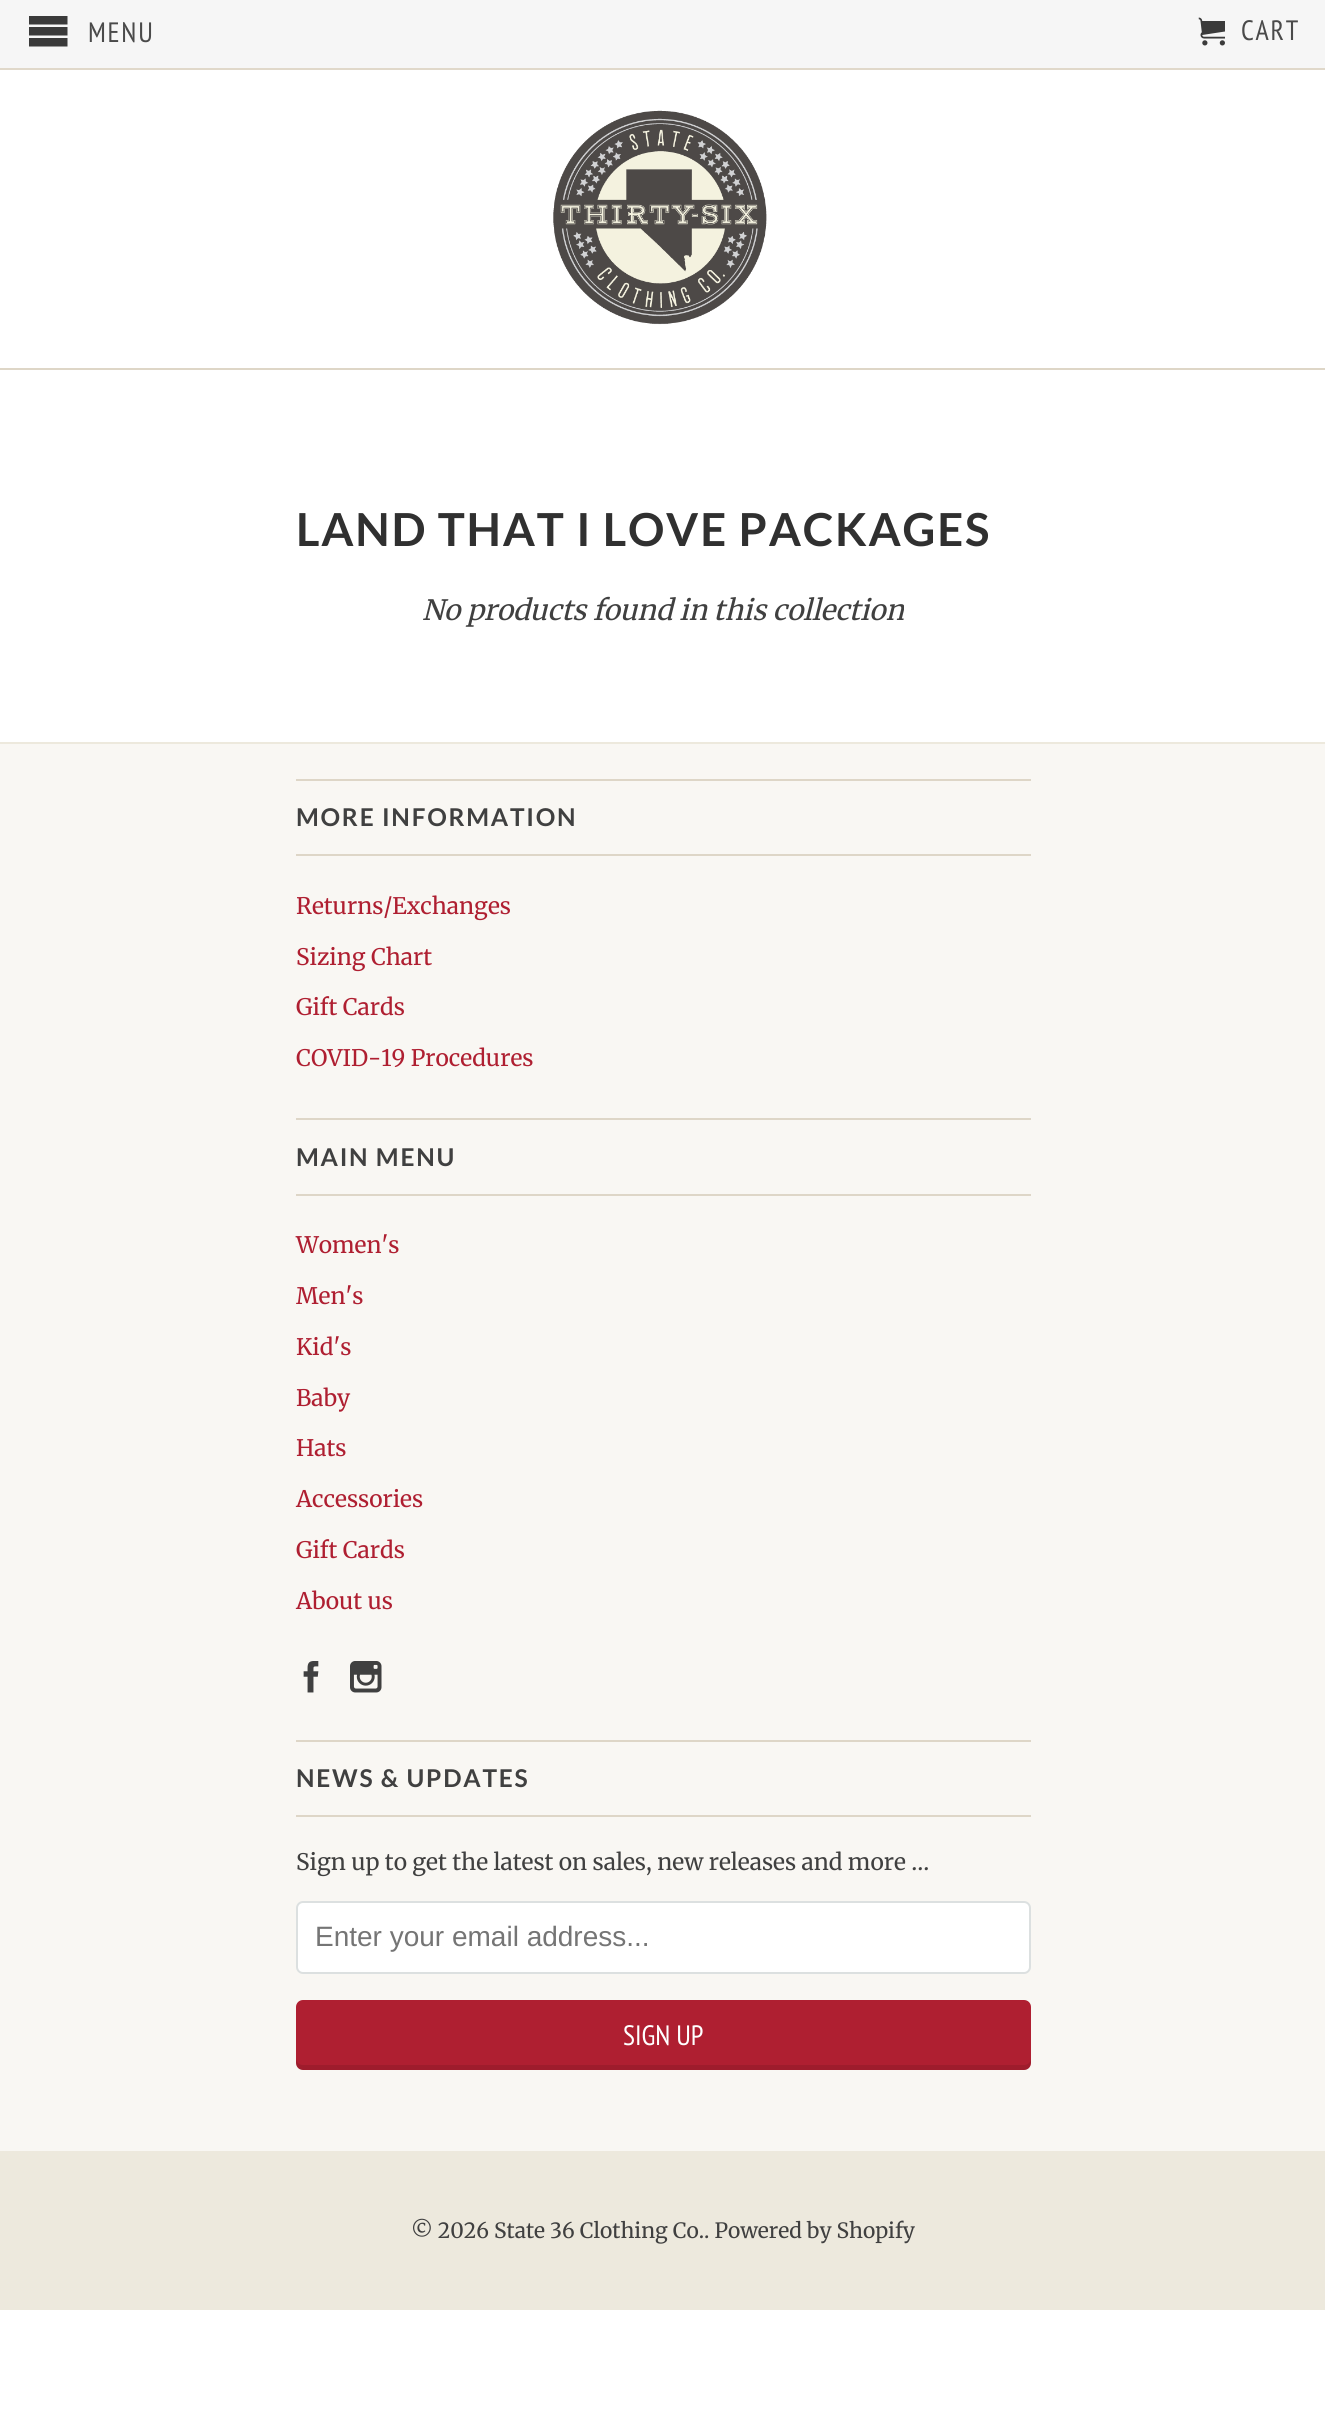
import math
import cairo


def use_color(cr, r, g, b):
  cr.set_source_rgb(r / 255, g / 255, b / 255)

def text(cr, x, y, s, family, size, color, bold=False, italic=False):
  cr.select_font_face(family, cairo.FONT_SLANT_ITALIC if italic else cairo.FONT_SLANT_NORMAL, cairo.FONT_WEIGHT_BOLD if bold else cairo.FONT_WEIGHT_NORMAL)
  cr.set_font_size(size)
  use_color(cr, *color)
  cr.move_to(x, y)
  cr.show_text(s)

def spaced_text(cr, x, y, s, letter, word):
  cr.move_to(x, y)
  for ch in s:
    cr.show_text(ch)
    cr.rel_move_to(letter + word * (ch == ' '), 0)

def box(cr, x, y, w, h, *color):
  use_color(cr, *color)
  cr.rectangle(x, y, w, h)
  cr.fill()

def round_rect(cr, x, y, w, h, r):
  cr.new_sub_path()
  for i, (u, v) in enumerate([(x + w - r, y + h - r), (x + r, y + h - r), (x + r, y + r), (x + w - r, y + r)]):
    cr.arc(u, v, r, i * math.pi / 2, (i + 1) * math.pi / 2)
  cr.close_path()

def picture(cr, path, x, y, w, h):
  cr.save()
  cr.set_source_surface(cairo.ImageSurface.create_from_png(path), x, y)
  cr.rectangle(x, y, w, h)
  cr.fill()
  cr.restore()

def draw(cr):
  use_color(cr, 255, 255, 255)
  cr.paint()
  box(cr, 0, 0, 1325, 68, 246, 246, 246)
  box(cr, 0, 68, 1325, 2, 224, 216, 202)
  use_color(cr, 58, 58, 58)
  cr.new_path()
  cr.move_to(29, 16)
  cr.line_to(29, 24.5)
  cr.line_to(67.5, 24.5)
  cr.line_to(67.5, 16)
  cr.close_path()
  cr.move_to(29, 27)
  cr.line_to(29, 35.5)
  cr.line_to(67.5, 35.5)
  cr.line_to(67.5, 27)
  cr.close_path()
  cr.move_to(29, 38)
  cr.line_to(29, 46.5)
  cr.line_to(67.5, 46.5)
  cr.line_to(67.5, 38)
  cr.close_path()
  cr.fill()
  picture(cr, "img_01.png", 1198, 17, 27, 29)
  box(cr, 0, 368, 1325, 2, 222, 214, 199)
  picture(cr, "img_02.png", 553, 110, 214, 215)
  box(cr, 0, 744, 1325, 1407, 249, 247, 243)
  box(cr, 0, 742, 1325, 2, 237, 233, 221)
  box(cr, 296, 779, 735, 2, 222, 214, 199)
  box(cr, 296, 854, 735, 2, 222, 214, 199)
  box(cr, 296, 1118, 735, 2, 222, 214, 199)
  box(cr, 296, 1194, 735, 2, 222, 214, 199)
  picture(cr, "img_03.png", 303, 1661, 16, 32)
  picture(cr, "img_04.png", 350, 1661, 32, 32)
  box(cr, 296, 1740, 735, 2, 222, 214, 199)
  box(cr, 296, 1815, 735, 2, 222, 214, 199)
  use_color(cr, 255, 255, 255)
  round_rect(cr, 297, 1902, 733, 71, 6)
  cr.fill_preserve()
  use_color(cr, 220, 224, 224)
  cr.stroke()
  use_color(cr, 175, 31, 49)
  round_rect(cr, 296, 2000, 735, 70, 7)
  cr.fill()
  cr.set_source_rgba(0, 0, 0, 0.1)
  cr.new_path()
  cr.move_to(296, 2058)
  cr.curve_to(296, 2063, 296, 2070, 303, 2070)
  cr.line_to(1024, 2070)
  cr.curve_to(1031, 2070, 1031, 2063, 1031, 2058)
  cr.curve_to(1031, 2062, 1028, 2065, 1024, 2065)
  cr.line_to(303, 2065)
  cr.curve_to(299, 2065, 296, 2062, 296, 2058)
  cr.close_path()
  cr.fill()
  box(cr, 0, 2151, 1325, 159, 237, 233, 221)
  cr.select_font_face("PT Sans Narrow")
  cr.set_font_size(28)
  use_color(cr, 74, 74, 74)
  spaced_text(cr, 88, 42, "MENU", 1.75, 0)
  spaced_text(cr, 1241, 40, "CART", 1.75, 0)
  cr.select_font_face("Lato", cairo.FONT_SLANT_NORMAL, cairo.FONT_WEIGHT_BOLD)
  cr.set_font_size(45.5)
  use_color(cr, 48, 48, 48)
  spaced_text(cr, 296, 546, "LAND THAT I LOVE PACKAGES", 1.75, 0)
  text(cr, 422, 620, "No products found in this collection", "Merriweather", 28, (64, 64, 64), italic=True)
  cr.select_font_face("Lato", cairo.FONT_SLANT_NORMAL, cairo.FONT_WEIGHT_BOLD)
  cr.set_font_size(24.5)
  spaced_text(cr, 296, 826, "MORE INFORMATION", 1.75, 0)
  text(cr, 296, 914, "Returns/Exchanges", "Merriweather", 22.75, (175, 31, 49))
  text(cr, 296, 965, "Sizing Chart", "Merriweather", 22.75, (175, 31, 49))
  text(cr, 296, 1015, "Gift Cards", "Merriweather", 22.75, (175, 31, 49))
  text(cr, 296, 1066, "COVID-19 Procedures", "Merriweather", 22.75, (175, 31, 49))
  cr.select_font_face("Lato", cairo.FONT_SLANT_NORMAL, cairo.FONT_WEIGHT_BOLD)
  cr.set_font_size(24.5)
  use_color(cr, 64, 64, 64)
  spaced_text(cr, 296, 1166, "MAIN MENU", 1.75, 0)
  text(cr, 296, 1253, "Women's", "Merriweather", 22.75, (175, 31, 49))
  text(cr, 296, 1304, "Men's", "Merriweather", 22.75, (175, 31, 49))
  text(cr, 296, 1355, "Kid's", "Merriweather", 22.75, (175, 31, 49))
  text(cr, 296, 1406, "Baby", "Merriweather", 22.75, (175, 31, 49))
  text(cr, 296, 1456, "Hats", "Merriweather", 22.75, (175, 31, 49))
  text(cr, 296, 1507, "Accessories", "Merriweather", 22.75, (175, 31, 49))
  text(cr, 296, 1558, "Gift Cards", "Merriweather", 22.75, (175, 31, 49))
  text(cr, 296, 1609, "About us", "Merriweather", 22.75, (175, 31, 49))
  cr.select_font_face("Lato", cairo.FONT_SLANT_NORMAL, cairo.FONT_WEIGHT_BOLD)
  cr.set_font_size(24.5)
  use_color(cr, 64, 64, 64)
  spaced_text(cr, 296, 1787, "NEWS & UPDATES", 1.75, 0)
  text(cr, 296, 1870, "Sign up to get the latest on sales, new releases and more …", "Merriweather", 22.75, (64, 64, 64))
  text(cr, 315, 1946, "Enter your email address...", "Liberation Sans", 28, (117, 117, 117))
  text(cr, 623, 2045, "SIGN UP", "PT Sans Narrow", 28, (255, 255, 255))
  text(cr, 411, 2238, "© 2026 State 36 Clothing Co.. Powered by Shopify", "Merriweather", 21, (64, 64, 64))


surface = cairo.ImageSurface(cairo.FORMAT_RGB24, 1325, 2436)
cr = cairo.Context(surface)
options = cairo.FontOptions()
options.set_hint_metrics(cairo.HINT_METRICS_OFF)
options.set_hint_style(cairo.HINT_STYLE_NONE)
cr.set_font_options(options)
cr.set_miter_limit(4)
draw(cr)
surface.write_to_png("out.png")
